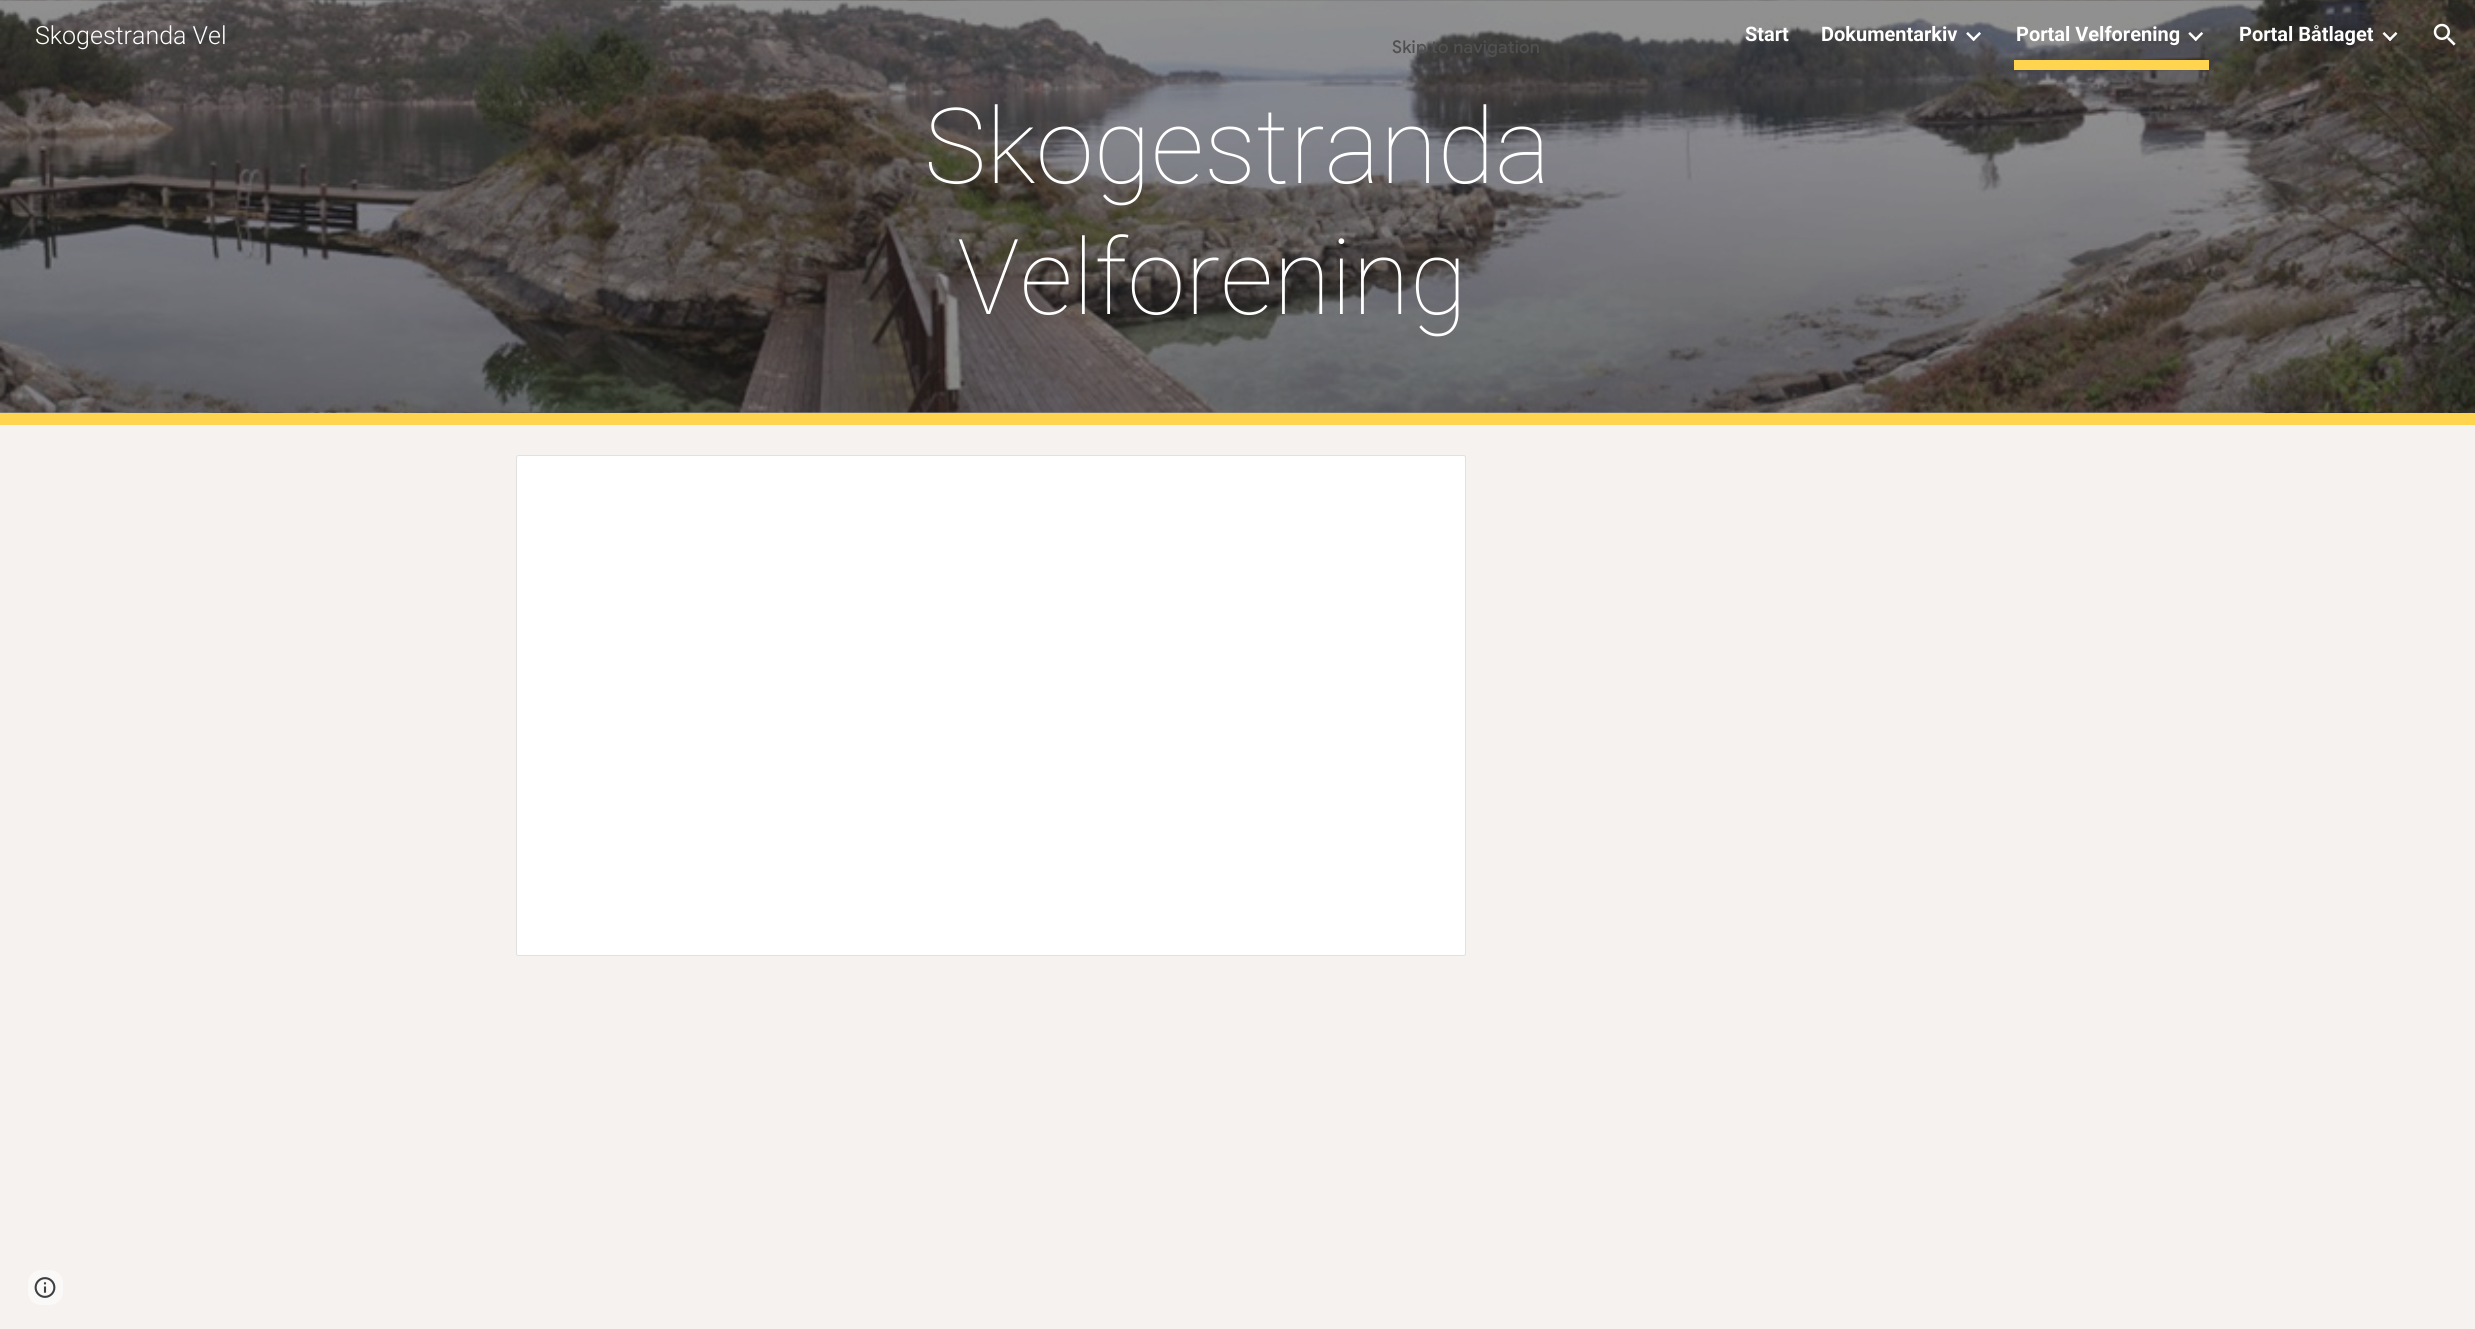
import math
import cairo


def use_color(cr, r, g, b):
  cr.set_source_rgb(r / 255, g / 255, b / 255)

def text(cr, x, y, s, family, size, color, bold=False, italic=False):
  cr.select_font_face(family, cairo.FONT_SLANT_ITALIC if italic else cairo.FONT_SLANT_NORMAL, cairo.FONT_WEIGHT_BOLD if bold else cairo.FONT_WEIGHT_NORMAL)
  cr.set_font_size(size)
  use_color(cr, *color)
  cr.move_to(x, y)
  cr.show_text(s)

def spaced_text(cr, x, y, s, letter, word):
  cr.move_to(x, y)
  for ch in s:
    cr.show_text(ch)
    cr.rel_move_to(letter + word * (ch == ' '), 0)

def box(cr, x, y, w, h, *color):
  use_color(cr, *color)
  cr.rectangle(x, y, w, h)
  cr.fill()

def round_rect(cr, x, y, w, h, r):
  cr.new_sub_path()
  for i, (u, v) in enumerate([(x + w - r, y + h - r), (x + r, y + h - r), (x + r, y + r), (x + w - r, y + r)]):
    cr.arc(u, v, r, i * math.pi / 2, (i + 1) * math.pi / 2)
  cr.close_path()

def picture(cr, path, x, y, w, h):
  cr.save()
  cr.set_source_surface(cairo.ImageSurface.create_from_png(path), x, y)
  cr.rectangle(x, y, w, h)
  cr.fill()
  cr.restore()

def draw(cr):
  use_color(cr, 245, 242, 240)
  cr.paint()
  picture(cr, "img_05.png", 0, 0, 2475, 413)
  picture(cr, "img_01.png", 1966, 32, 15, 10)
  box(cr, 2014, 60, 195, 10, 255, 213, 79)
  picture(cr, "img_02.png", 2188, 32, 16, 10)
  picture(cr, "img_03.png", 2382, 32, 16, 9)
  picture(cr, "img_04.png", 2433, 23, 23, 23)
  box(cr, 0, 413, 2475, 12, 255, 213, 79)
  use_color(cr, 255, 255, 255)
  round_rect(cr, 516.5, 455.5, 949, 500, 2)
  cr.fill_preserve()
  use_color(cr, 224, 224, 224)
  cr.set_line_width(1)
  cr.stroke()
  use_color(cr, 250, 249, 248)
  round_rect(cr, 28, 1270, 35, 35, 13)
  cr.fill()
  picture(cr, "img_06.png", 34, 1277, 22, 21)
  text(cr, 35, 44, "Skogestranda Vel", "Roboto Light", 25, (255, 255, 255))
  text(cr, 1745, 41, "Start", "Roboto", 20, (255, 255, 255), bold=True)
  text(cr, 1821, 41, "Dokumentarkiv", "Roboto", 20, (255, 255, 255), bold=True)
  text(cr, 2016, 41, "Portal Velforening", "Roboto", 20, (255, 255, 255), bold=True)
  text(cr, 2239, 41, "Portal Båtlaget", "Roboto", 20, (255, 255, 255), bold=True)
  text(cr, 924, 183, "Skogestranda", "Roboto Thin", 105, (255, 255, 255))
  text(cr, 957, 314, "Velforening", "Roboto Thin", 105, (255, 255, 255))
  cr.select_font_face("Google Sans Medium")
  cr.set_font_size(17.5)
  use_color(cr, 80, 80, 80)
  spaced_text(cr, 1392, 53, "Skip to navigation", 0.2, 0)


surface = cairo.ImageSurface(cairo.FORMAT_RGB24, 2475, 1329)
cr = cairo.Context(surface)
options = cairo.FontOptions()
options.set_hint_metrics(cairo.HINT_METRICS_OFF)
options.set_hint_style(cairo.HINT_STYLE_NONE)
cr.set_font_options(options)
cr.set_miter_limit(4)
draw(cr)
surface.write_to_png("out.png")
